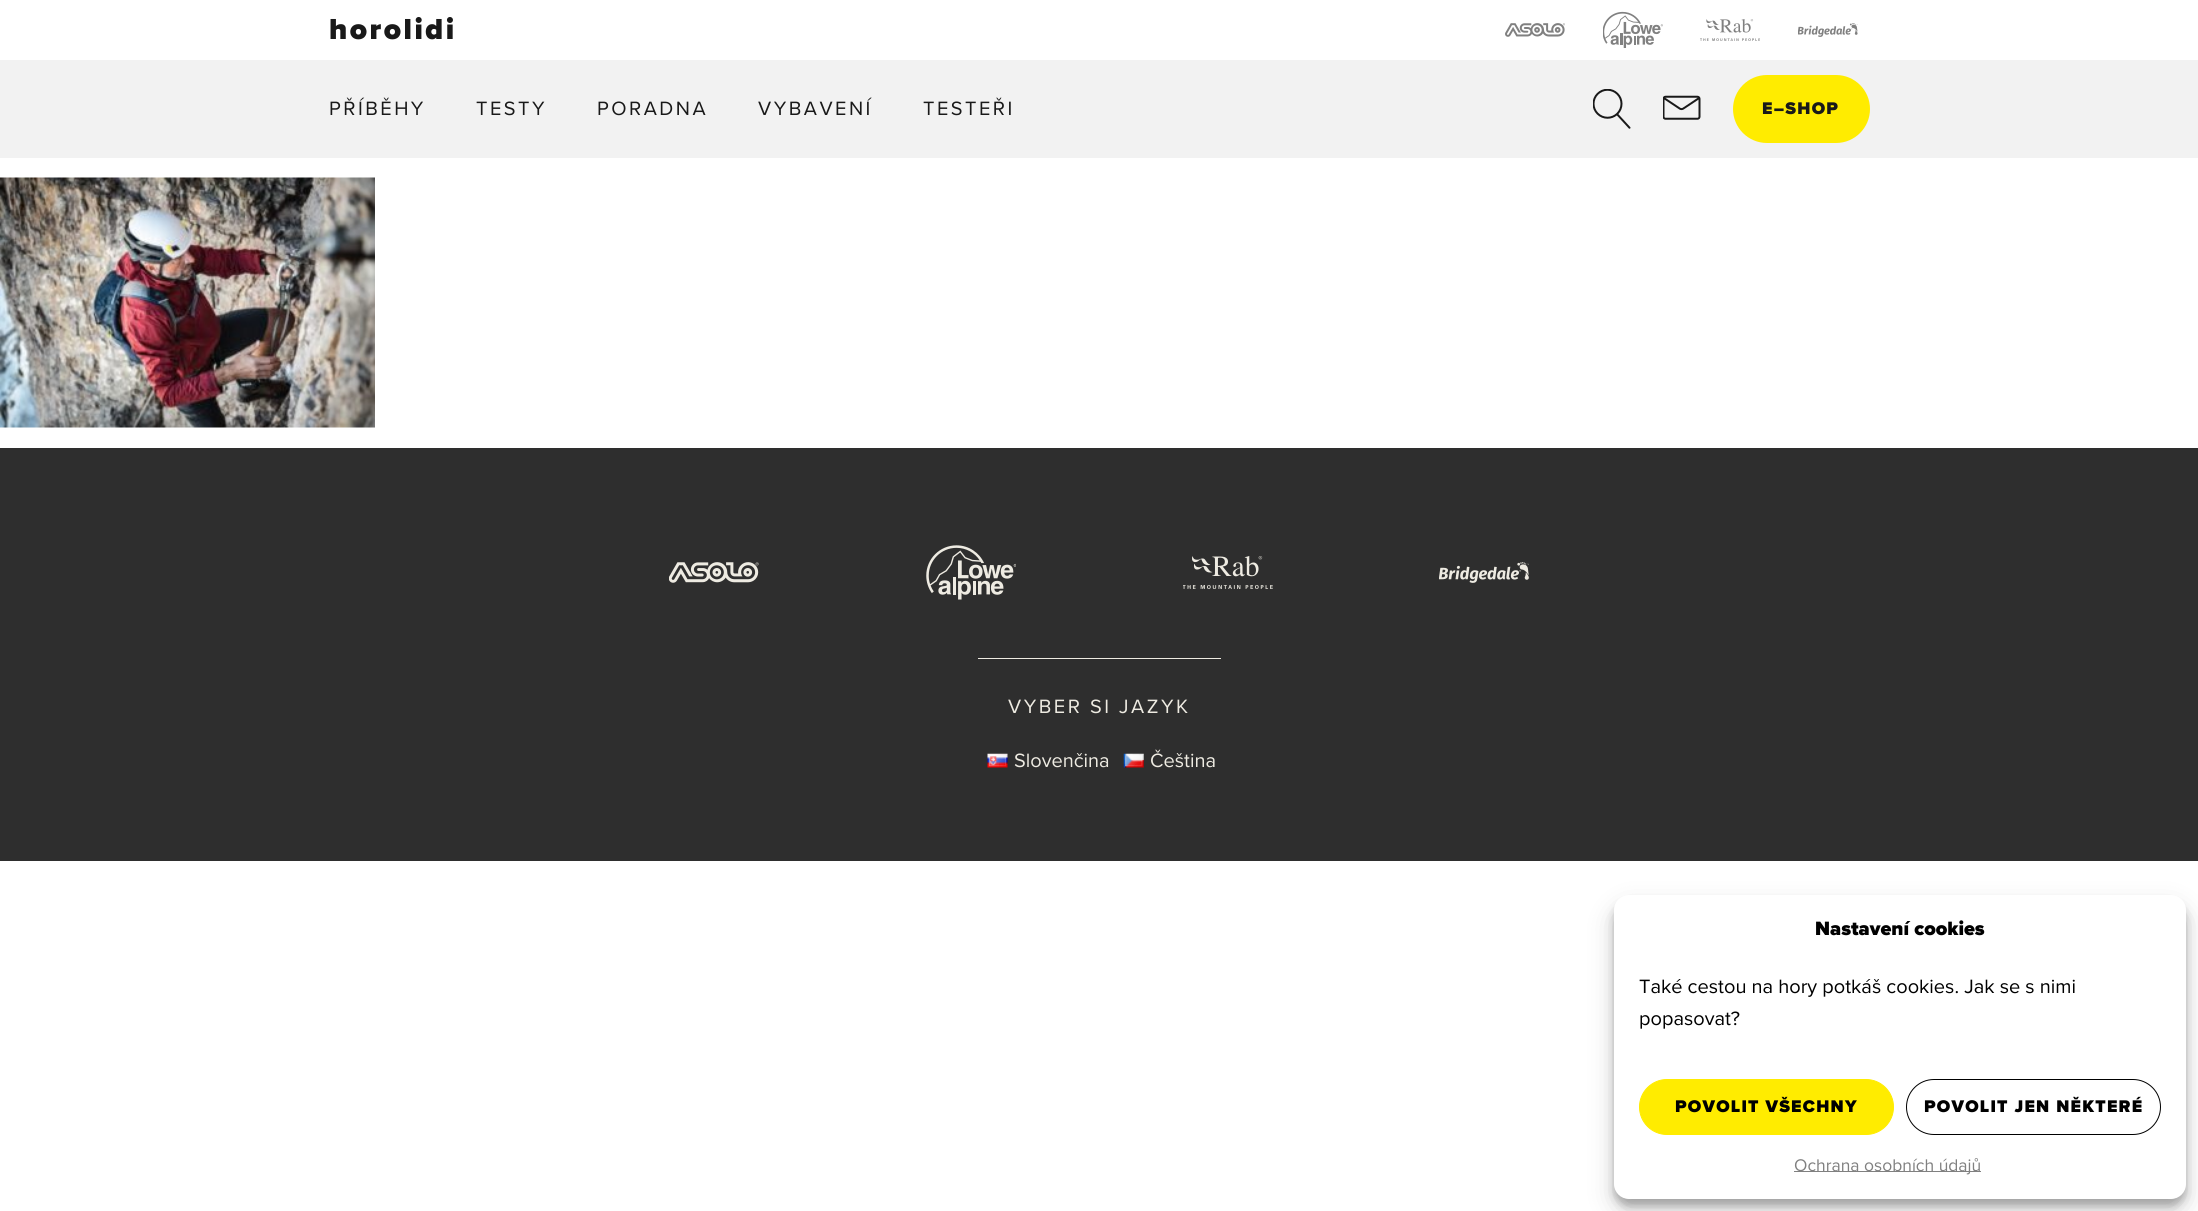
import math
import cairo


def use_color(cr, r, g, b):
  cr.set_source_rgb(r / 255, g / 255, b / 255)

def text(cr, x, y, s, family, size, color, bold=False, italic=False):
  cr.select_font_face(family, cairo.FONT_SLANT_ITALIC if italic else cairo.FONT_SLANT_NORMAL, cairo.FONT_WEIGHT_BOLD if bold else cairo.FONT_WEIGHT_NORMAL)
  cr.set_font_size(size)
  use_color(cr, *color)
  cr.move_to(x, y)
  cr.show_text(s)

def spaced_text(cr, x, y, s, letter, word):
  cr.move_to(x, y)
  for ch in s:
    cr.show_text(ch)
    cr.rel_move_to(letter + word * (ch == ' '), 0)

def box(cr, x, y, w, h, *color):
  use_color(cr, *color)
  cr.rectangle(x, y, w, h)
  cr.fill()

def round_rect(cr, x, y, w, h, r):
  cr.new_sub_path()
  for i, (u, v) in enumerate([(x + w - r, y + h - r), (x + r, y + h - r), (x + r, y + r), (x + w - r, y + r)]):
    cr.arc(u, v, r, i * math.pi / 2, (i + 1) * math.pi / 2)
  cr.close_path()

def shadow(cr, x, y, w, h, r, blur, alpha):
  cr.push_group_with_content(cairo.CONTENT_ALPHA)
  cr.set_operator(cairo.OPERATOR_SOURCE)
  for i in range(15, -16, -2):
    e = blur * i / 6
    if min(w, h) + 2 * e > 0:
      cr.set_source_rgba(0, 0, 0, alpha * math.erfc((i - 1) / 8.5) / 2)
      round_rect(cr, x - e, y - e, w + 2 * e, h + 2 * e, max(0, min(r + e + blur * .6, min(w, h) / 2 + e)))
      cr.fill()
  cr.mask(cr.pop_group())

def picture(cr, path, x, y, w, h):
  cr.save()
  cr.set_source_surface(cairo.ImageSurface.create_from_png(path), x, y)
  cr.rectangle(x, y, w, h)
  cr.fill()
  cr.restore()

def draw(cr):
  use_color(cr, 255, 255, 255)
  cr.paint()
  box(cr, 0, 60, 2198, 98, 242, 242, 242)
  picture(cr, "img_01.png", 1505, 23, 60, 14)
  picture(cr, "img_02.png", 1603, 11, 60, 37)
  picture(cr, "img_03.png", 1700, 19, 60, 22)
  picture(cr, "img_04.png", 1798, 23, 60, 14)
  picture(cr, "img_05.png", 1593, 89, 38, 40)
  picture(cr, "img_06.png", 1663, 95, 38, 25)
  use_color(cr, 255, 236, 0)
  round_rect(cr, 1733, 75, 137, 68, 34)
  cr.fill()
  picture(cr, "img_07.png", 0, 177, 375, 251)
  box(cr, 0, 448, 2198, 413, 46, 46, 46)
  picture(cr, "img_08.png", 669, 562, 90, 21)
  picture(cr, "img_09.png", 926, 545, 90, 55)
  picture(cr, "img_10.png", 1183, 556, 90, 33)
  picture(cr, "img_11.png", 1439, 562, 90, 21)
  box(cr, 978, 658, 243, 1, 238, 235, 226)
  picture(cr, "img_12.png", 987, 753, 21, 15)
  picture(cr, "img_13.png", 1123, 753, 21, 15)
  use_color(cr, 0, 0, 0)
  shadow(cr, 1614, 903, 572, 303, 15, 4, 0.23)
  shadow(cr, 1614, 908, 572, 303, 15, 12.5, 0.19)
  use_color(cr, 255, 255, 255)
  round_rect(cr, 1614, 895, 572, 304, 15)
  cr.fill()
  use_color(cr, 255, 236, 0)
  round_rect(cr, 1639.5, 1079.5, 254, 55, 27.5)
  cr.fill_preserve()
  cr.set_line_width(1)
  cr.stroke()
  round_rect(cr, 1906.5, 1079.5, 254, 55, 27.5)
  use_color(cr, 0, 0, 0)
  cr.stroke()
  box(cr, 1794, 1171, 187, 1, 128, 128, 128)
  cr.select_font_face("Proxima Nova Black")
  cr.set_font_size(30)
  use_color(cr, 25, 25, 25)
  spaced_text(cr, 329, 39, "horolidi", 2.5, 0)
  cr.select_font_face("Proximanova")
  cr.set_font_size(20)
  spaced_text(cr, 329, 115, "PŘÍBĚHY", 2.5, 0)
  spaced_text(cr, 476, 115, "TESTY", 2.5, 0)
  spaced_text(cr, 597, 115, "PORADNA", 2.5, 0)
  spaced_text(cr, 758, 115, "VYBAVENÍ", 2.5, 0)
  spaced_text(cr, 923, 115, "TESTEŘI", 2.5, 0)
  cr.select_font_face("Proxima Nova Black")
  cr.set_font_size(17.5)
  spaced_text(cr, 1762, 114, "E–SHOP", 1.25, 0)
  cr.select_font_face("Proximanova")
  cr.set_font_size(20)
  use_color(cr, 238, 235, 226)
  spaced_text(cr, 1008, 713, "VYBER SI JAZYK", 2.5, 0)
  text(cr, 1014, 767, "Slovenčina", "Proximanova", 20, (238, 235, 226))
  text(cr, 1150, 767, "Čeština", "Proximanova", 20, (238, 235, 226))
  text(cr, 1815, 935, "Nastavení cookies", "Proxima Nova Black", 20, (0, 0, 0))
  text(cr, 1639, 993, "Také cestou na hory potkáš cookies. Jak se s nimi", "Proximanova", 20, (0, 0, 0))
  text(cr, 1639, 1025, "popasovat?", "Proximanova", 20, (0, 0, 0))
  cr.select_font_face("Proxima Nova Black")
  cr.set_font_size(17.5)
  spaced_text(cr, 1675, 1112, "POVOLIT VŠECHNY", 1.25, 0)
  spaced_text(cr, 1924, 1112, "POVOLIT JEN NĚKTERÉ", 1.25, 0)
  text(cr, 1794, 1171, "Ochrana osobních údajů", "Proximanova", 17.5, (128, 128, 128))


surface = cairo.ImageSurface(cairo.FORMAT_RGB24, 2198, 1211)
cr = cairo.Context(surface)
options = cairo.FontOptions()
options.set_hint_metrics(cairo.HINT_METRICS_OFF)
options.set_hint_style(cairo.HINT_STYLE_NONE)
cr.set_font_options(options)
cr.set_miter_limit(4)
draw(cr)
surface.write_to_png("out.png")
